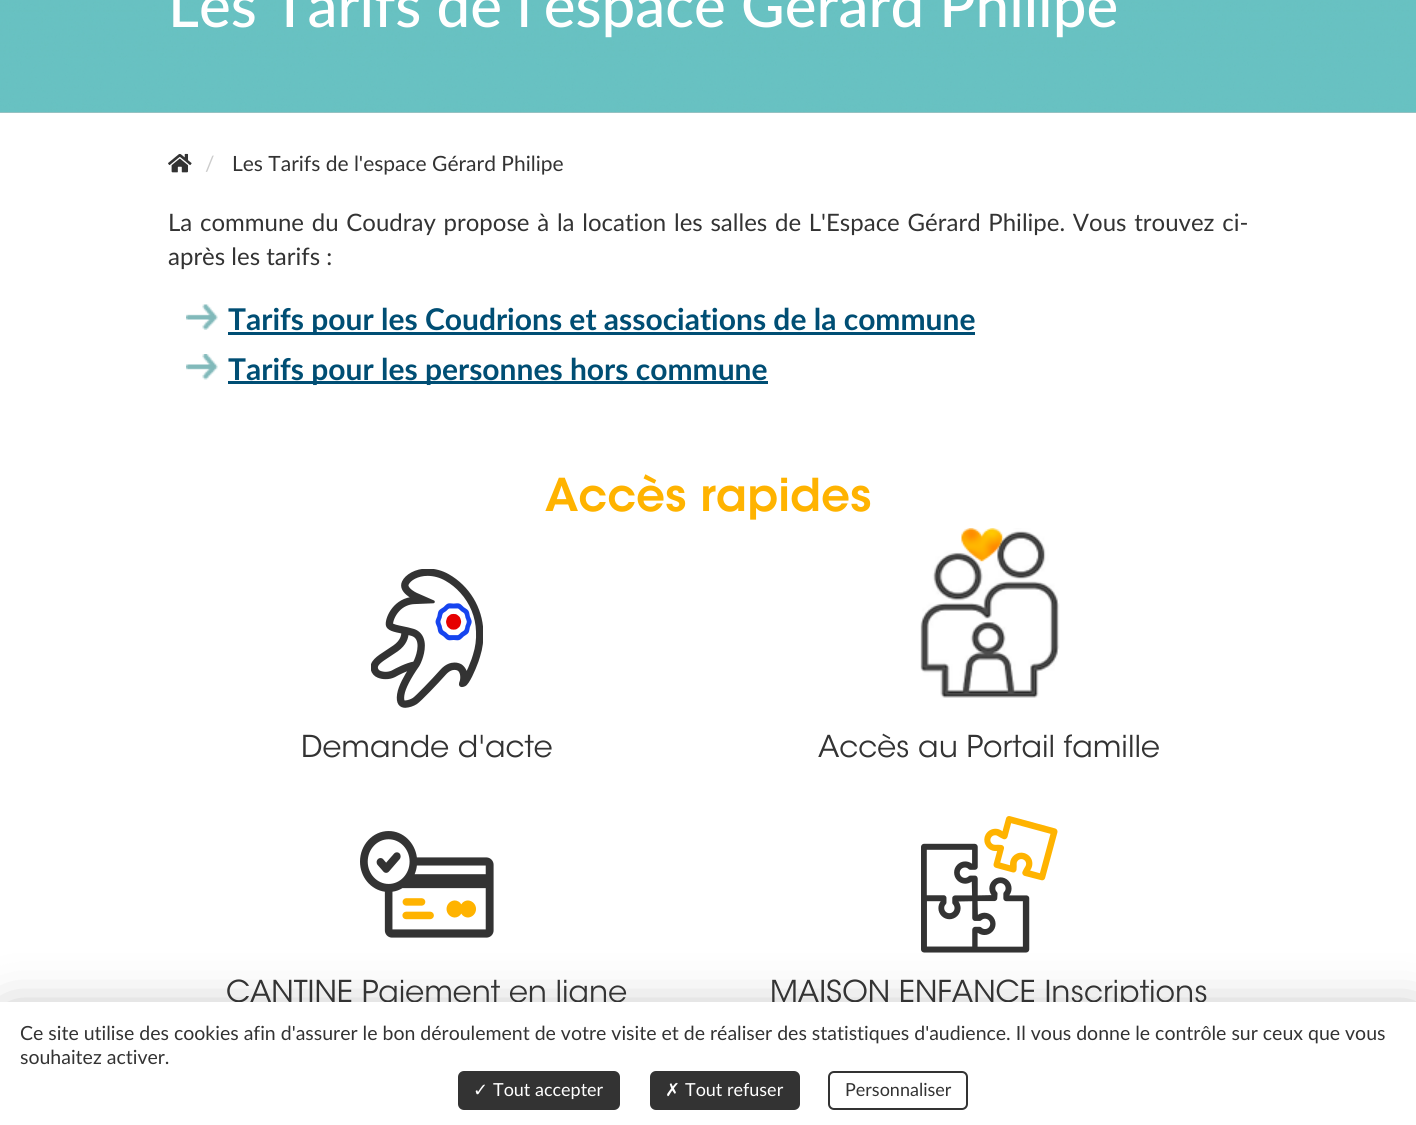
import math
import cairo


def use_color(cr, r, g, b):
  cr.set_source_rgb(r / 255, g / 255, b / 255)

def text(cr, x, y, s, family, size, color, bold=False, italic=False):
  cr.select_font_face(family, cairo.FONT_SLANT_ITALIC if italic else cairo.FONT_SLANT_NORMAL, cairo.FONT_WEIGHT_BOLD if bold else cairo.FONT_WEIGHT_NORMAL)
  cr.set_font_size(size)
  use_color(cr, *color)
  cr.move_to(x, y)
  cr.show_text(s)

def spaced_text(cr, x, y, s, letter, word):
  cr.move_to(x, y)
  for ch in s:
    cr.show_text(ch)
    cr.rel_move_to(letter + word * (ch == ' '), 0)

def box(cr, x, y, w, h, *color):
  use_color(cr, *color)
  cr.rectangle(x, y, w, h)
  cr.fill()

def round_rect(cr, x, y, w, h, r):
  cr.new_sub_path()
  for i, (u, v) in enumerate([(x + w - r, y + h - r), (x + r, y + h - r), (x + r, y + r), (x + w - r, y + r)]):
    cr.arc(u, v, r, i * math.pi / 2, (i + 1) * math.pi / 2)
  cr.close_path()

def shadow(cr, x, y, w, h, r, blur, alpha):
  cr.push_group_with_content(cairo.CONTENT_ALPHA)
  cr.set_operator(cairo.OPERATOR_SOURCE)
  for i in range(15, -16, -2):
    e = blur * i / 6
    if min(w, h) + 2 * e > 0:
      cr.set_source_rgba(0, 0, 0, alpha * math.erfc((i - 1) / 8.5) / 2)
      round_rect(cr, x - e, y - e, w + 2 * e, h + 2 * e, max(0, min(r + e + blur * .6, min(w, h) / 2 + e)))
      cr.fill()
  cr.mask(cr.pop_group())

def picture(cr, path, x, y, w, h):
  cr.save()
  cr.set_source_surface(cairo.ImageSurface.create_from_png(path), x, y)
  cr.rectangle(x, y, w, h)
  cr.fill()
  cr.restore()

def draw(cr):
  use_color(cr, 255, 255, 255)
  cr.paint()
  box(cr, 0, 112, 1416, 1, 194, 194, 194)
  picture(cr, "img_01.png", 0, 0, 1416, 113)
  picture(cr, "img_02.png", 168, 153, 24, 20)
  picture(cr, "img_03.png", 186, 304, 32, 26)
  box(cr, 228, 332, 747, 3, 0, 78, 116)
  picture(cr, "img_04.png", 186, 354, 32, 26)
  box(cr, 228, 381, 540, 3, 0, 78, 116)
  picture(cr, "img_05.png", 371, 569, 112, 139)
  picture(cr, "img_06.png", 920, 528, 140, 170)
  picture(cr, "img_07.png", 360, 831, 134, 107)
  picture(cr, "img_08.png", 921, 816, 137, 137)
  use_color(cr, 0, 0, 0)
  shadow(cr, 9, 1020, 1407, 105, 0, 27, 0.4)
  text(cr, 168, 27, "Les Tarifs de l'espace Gérard Philipe", "Lato Medium", 60, (255, 255, 255))
  text(cr, 205, 171, "/", "Lato", 21, (204, 204, 204))
  text(cr, 232, 171, "Les Tarifs de l'espace Gérard Philipe", "Lato", 21, (51, 51, 51))
  cr.set_font_size(24)
  spaced_text(cr, 168, 231, "La commune du Coudray propose à la location les salles de L'Espace Gérard Philipe. Vous trouvez ci-", 0, 1.6)
  text(cr, 168, 265, "après les tarifs :", "Lato", 24, (51, 51, 51))
  text(cr, 228, 330, "Tarifs pour les Coudrions et associations de la commune", "Lato", 30, (0, 78, 116), bold=True)
  text(cr, 228, 380, "Tarifs pour les personnes hors commune", "Lato", 30, (0, 78, 116), bold=True)
  text(cr, 545, 511, "Accès rapides", "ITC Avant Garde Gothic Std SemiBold", 45, (255, 179, 0))
  text(cr, 301, 757, "Demande d'acte", "ITC Avant Garde Gothic Std Light", 30, (51, 51, 51))
  text(cr, 818, 757, "Accès au Portail famille", "ITC Avant Garde Gothic Std Light", 30, (51, 51, 51))
  text(cr, 226, 1002, "CANTINE Paiement en ligne", "ITC Avant Garde Gothic Std Light", 30, (51, 51, 51))
  text(cr, 770, 1002, "MAISON ENFANCE Inscriptions", "ITC Avant Garde Gothic Std Light", 30, (51, 51, 51))
  box(cr, 0, 1002, 1416, 123, 255, 255, 255)
  text(cr, 20, 1040, "Ce site utilise des cookies afin d'assurer le bon déroulement de votre visite et de réaliser des statistiques d'audience. Il vous donne le contrôle sur ceux que vous", "Lato", 19.5, (51, 51, 51))
  text(cr, 20, 1064, "souhaitez activer.", "Lato", 19.5, (51, 51, 51))
  round_rect(cr, 459, 1072, 160, 37, 5)
  cr.fill_preserve()
  cr.stroke()
  text(cr, 473, 1096, "✓", "DejaVu Sans", 18, (255, 255, 255))
  text(cr, 493, 1096, "Tout accepter", "Lato", 18, (255, 255, 255))
  use_color(cr, 51, 51, 51)
  round_rect(cr, 651, 1072, 148, 37, 5)
  cr.fill_preserve()
  cr.stroke()
  text(cr, 665, 1096, "✗", "DejaVu Sans", 18, (255, 255, 255))
  text(cr, 685, 1096, "Tout refuser", "Lato", 18, (255, 255, 255))
  round_rect(cr, 829, 1072, 138, 37, 5)
  use_color(cr, 51, 51, 51)
  cr.stroke()
  text(cr, 845, 1096, "Personnaliser", "Lato", 18, (51, 51, 51))


surface = cairo.ImageSurface(cairo.FORMAT_RGB24, 1416, 1125)
cr = cairo.Context(surface)
options = cairo.FontOptions()
options.set_hint_metrics(cairo.HINT_METRICS_OFF)
options.set_hint_style(cairo.HINT_STYLE_NONE)
cr.set_font_options(options)
cr.set_miter_limit(4)
draw(cr)
surface.write_to_png("out.png")
